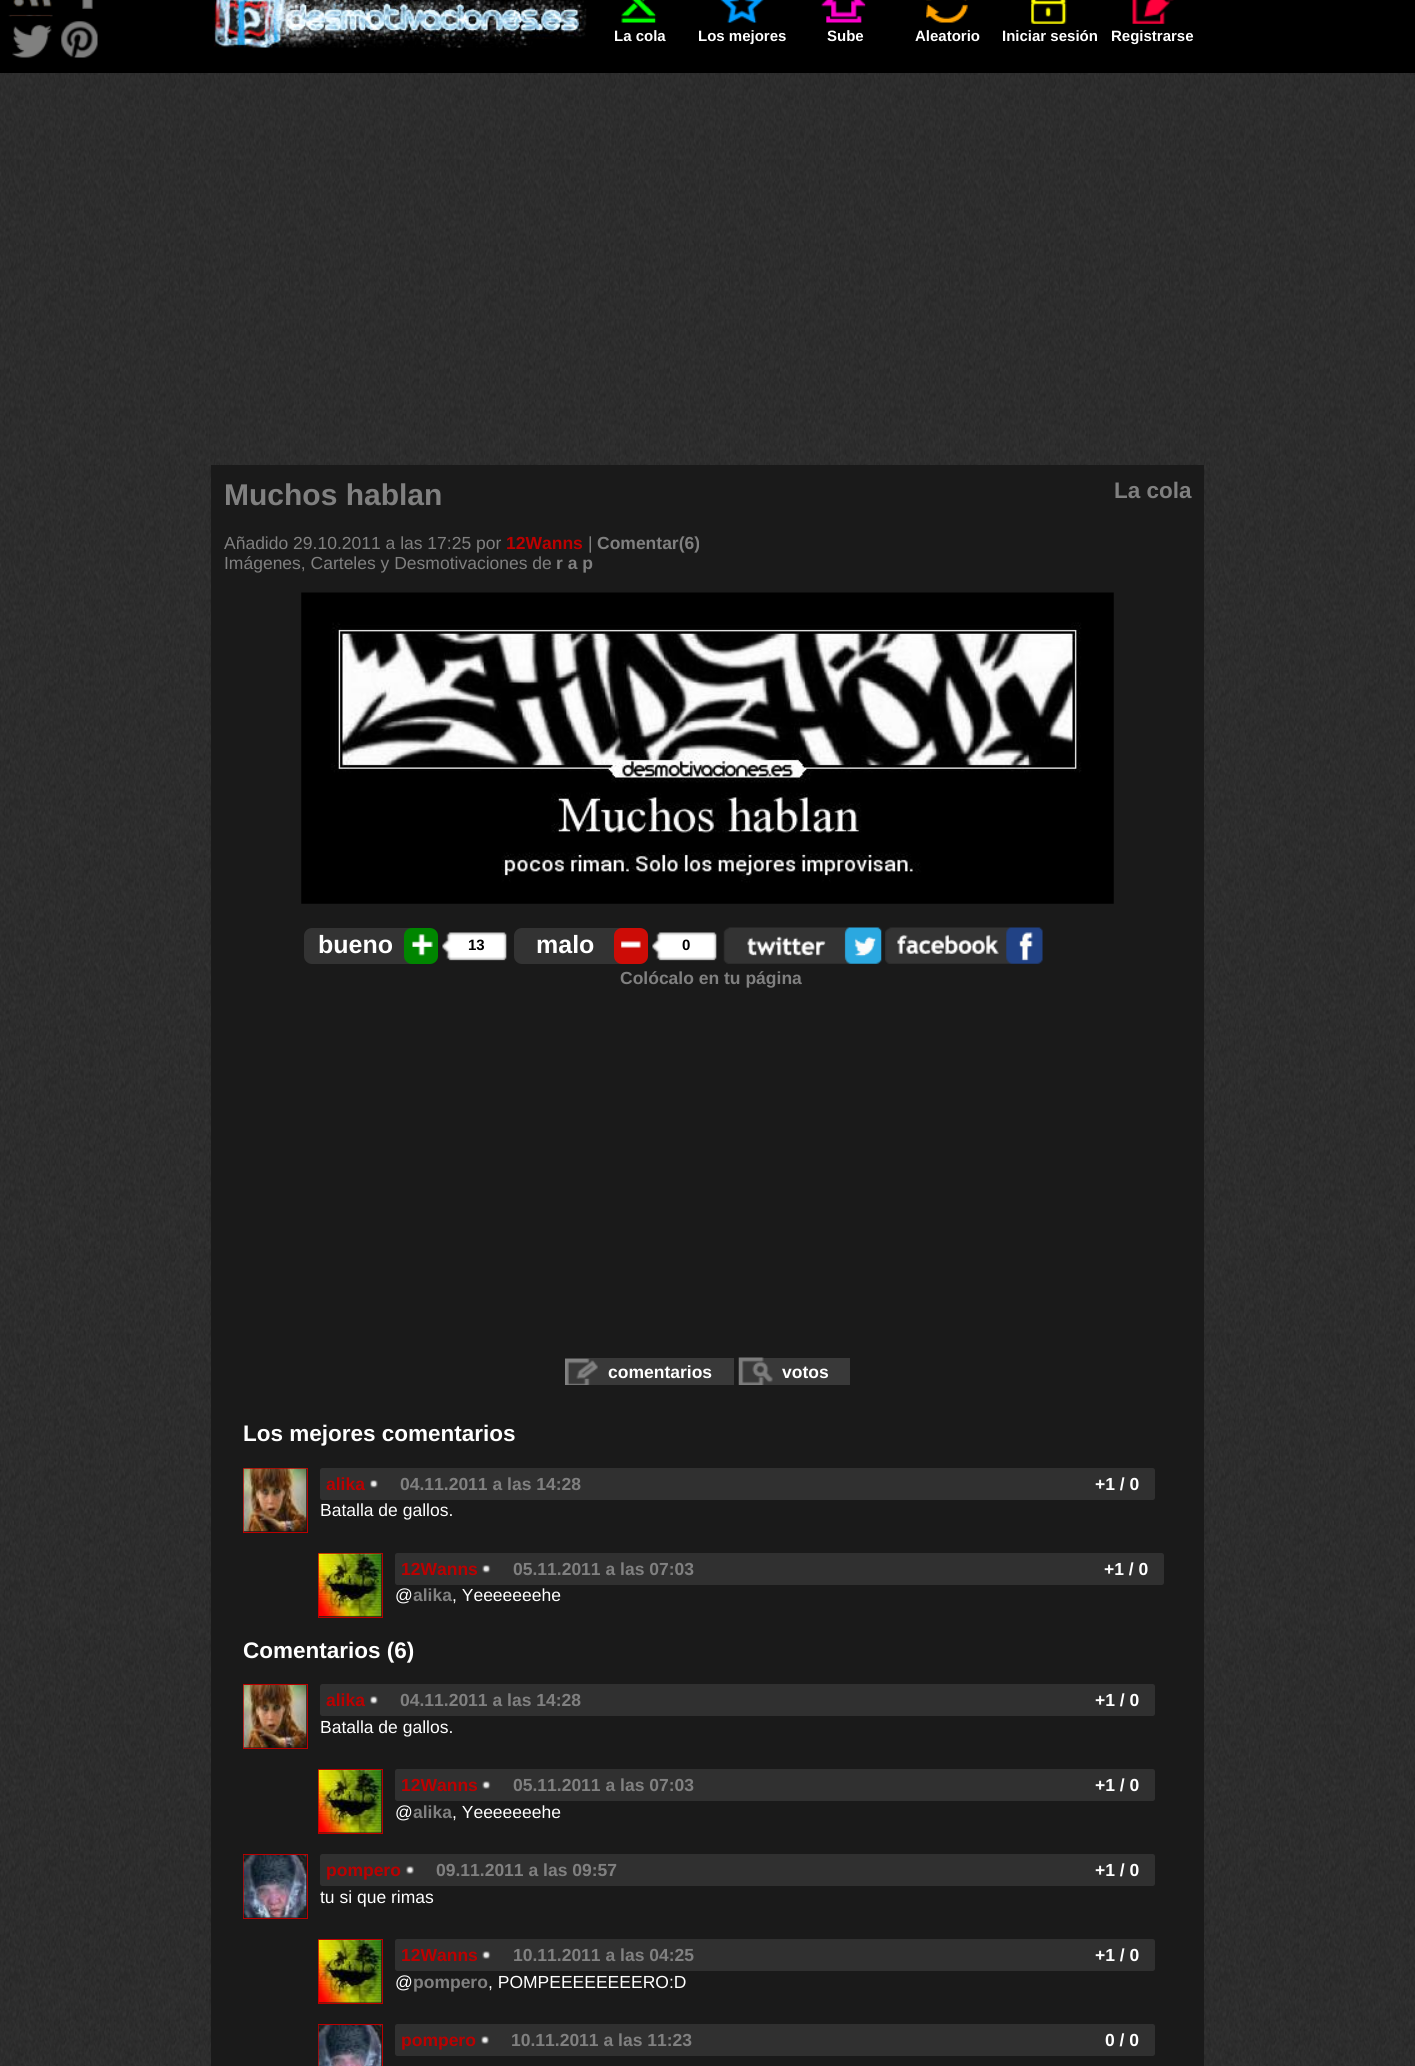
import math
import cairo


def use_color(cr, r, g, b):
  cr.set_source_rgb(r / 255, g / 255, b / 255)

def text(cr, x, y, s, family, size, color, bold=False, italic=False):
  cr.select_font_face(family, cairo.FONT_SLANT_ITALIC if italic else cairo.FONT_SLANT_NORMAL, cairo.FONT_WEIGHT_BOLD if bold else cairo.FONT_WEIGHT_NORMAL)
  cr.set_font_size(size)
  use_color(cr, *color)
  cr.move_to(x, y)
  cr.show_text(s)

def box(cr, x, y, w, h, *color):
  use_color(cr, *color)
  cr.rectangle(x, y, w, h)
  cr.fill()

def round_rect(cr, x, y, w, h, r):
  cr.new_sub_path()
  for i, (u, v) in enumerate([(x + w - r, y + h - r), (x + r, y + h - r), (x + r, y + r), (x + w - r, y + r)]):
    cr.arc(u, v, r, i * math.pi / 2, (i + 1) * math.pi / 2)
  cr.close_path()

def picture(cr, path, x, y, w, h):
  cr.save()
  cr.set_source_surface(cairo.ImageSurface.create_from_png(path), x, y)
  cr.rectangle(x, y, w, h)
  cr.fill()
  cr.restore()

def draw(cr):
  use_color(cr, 255, 255, 255)
  cr.paint()
  picture(cr, "img_01.png", 0, 73, 1415, 1993)
  box(cr, 0, 0, 1415, 73, 0, 0, 0)
  picture(cr, "img_02.png", 8, 0, 45, 17)
  picture(cr, "img_03.png", 82, 0, 11, 9)
  picture(cr, "img_04.png", 11, 16, 41, 42)
  picture(cr, "img_05.png", 61, 21, 37, 37)
  picture(cr, "img_06.png", 213, 0, 374, 48)
  picture(cr, "img_07.png", 621, 0, 36, 23)
  picture(cr, "img_08.png", 720, 0, 44, 23)
  picture(cr, "img_09.png", 821, 0, 45, 23)
  picture(cr, "img_10.png", 926, 0, 42, 23)
  picture(cr, "img_11.png", 1031, 0, 36, 24)
  picture(cr, "img_12.png", 1132, 0, 42, 24)
  box(cr, 211, 465, 993, 1601, 26, 26, 26)
  picture(cr, "img_13.png", 301, 592, 813, 312)
  use_color(cr, 51, 51, 51)
  round_rect(cr, 304, 928, 116, 36, 8)
  cr.fill()
  use_color(cr, 0, 134, 0)
  round_rect(cr, 404, 928, 34, 36, 8)
  cr.fill()
  picture(cr, "img_14.png", 412, 934, 21, 22)
  picture(cr, "img_15.png", 442, 932, 65, 29)
  use_color(cr, 51, 51, 51)
  round_rect(cr, 514, 928, 116, 36, 8)
  cr.fill()
  use_color(cr, 205, 12, 6)
  round_rect(cr, 614, 928, 34, 36, 8)
  cr.fill()
  picture(cr, "img_16.png", 621, 941, 20, 7)
  picture(cr, "img_15.png", 652, 932, 65, 29)
  picture(cr, "img_17.png", 723, 927, 159, 37)
  picture(cr, "img_18.png", 885, 927, 158, 37)
  box(cr, 565, 1358, 169, 27, 57, 57, 57)
  picture(cr, "img_19.png", 565, 1358, 33, 27)
  box(cr, 739, 1358, 111, 27, 57, 57, 57)
  picture(cr, "img_20.png", 738, 1357, 35, 28)
  cr.rectangle(243.5, 1468.5, 64, 64)
  use_color(cr, 187, 0, 0)
  cr.set_line_width(1)
  cr.stroke()
  picture(cr, "img_21.png", 243, 1468, 64, 64)
  use_color(cr, 48, 48, 48)
  round_rect(cr, 320, 1468, 835, 32, 2.5)
  cr.fill()
  picture(cr, "img_22.png", 370, 1480, 8, 8)
  cr.rectangle(318.5, 1553.5, 64, 64)
  use_color(cr, 187, 0, 0)
  cr.stroke()
  picture(cr, "img_23.png", 318, 1553, 64, 64)
  use_color(cr, 48, 48, 48)
  round_rect(cr, 395, 1553, 769, 32, 2.5)
  cr.fill()
  picture(cr, "img_24.png", 482, 1565, 9, 8)
  cr.rectangle(243.5, 1684.5, 64, 64)
  use_color(cr, 187, 0, 0)
  cr.stroke()
  picture(cr, "img_25.png", 243, 1685, 64, 63)
  use_color(cr, 48, 48, 48)
  round_rect(cr, 320, 1684, 835, 32, 2.5)
  cr.fill()
  picture(cr, "img_26.png", 370, 1696, 8, 8)
  cr.rectangle(318.5, 1769.5, 64, 64)
  use_color(cr, 187, 0, 0)
  cr.stroke()
  picture(cr, "img_27.png", 318, 1770, 64, 63)
  use_color(cr, 48, 48, 48)
  round_rect(cr, 395, 1769, 760, 32, 2.5)
  cr.fill()
  picture(cr, "img_28.png", 482, 1781, 9, 8)
  cr.rectangle(243.5, 1854.5, 64, 64)
  use_color(cr, 187, 0, 0)
  cr.stroke()
  picture(cr, "img_29.png", 243, 1855, 64, 63)
  use_color(cr, 48, 48, 48)
  round_rect(cr, 320, 1854, 835, 32, 2.5)
  cr.fill()
  picture(cr, "img_30.png", 406, 1866, 8, 8)
  cr.rectangle(318.5, 1939.5, 64, 64)
  use_color(cr, 187, 0, 0)
  cr.stroke()
  picture(cr, "img_27.png", 318, 1940, 64, 63)
  use_color(cr, 48, 48, 48)
  round_rect(cr, 395, 1939, 760, 32, 2.5)
  cr.fill()
  picture(cr, "img_28.png", 482, 1951, 9, 8)
  cr.rectangle(318.5, 2024.5, 64, 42)
  use_color(cr, 187, 0, 0)
  cr.stroke()
  picture(cr, "img_31.png", 318, 2025, 64, 41)
  use_color(cr, 48, 48, 48)
  round_rect(cr, 395, 2024, 760, 32, 2.5)
  cr.fill()
  picture(cr, "img_30.png", 481, 2036, 8, 8)
  text(cr, 614, 41, "La cola", "Liberation Sans", 15, (255, 255, 255), bold=True)
  text(cr, 698, 41, "Los mejores", "Liberation Sans", 15, (255, 255, 255), bold=True)
  text(cr, 827, 41, "Sube", "Liberation Sans", 15, (255, 255, 255), bold=True)
  text(cr, 915, 41, "Aleatorio", "Liberation Sans", 15, (255, 255, 255), bold=True)
  text(cr, 1002, 41, "Iniciar sesión", "Liberation Sans", 15, (255, 255, 255), bold=True)
  text(cr, 1111, 41, "Registrarse", "Liberation Sans", 15, (255, 255, 255), bold=True)
  text(cr, 224, 505, "Muchos hablan", "Liberation Sans", 30, (128, 128, 128), bold=True)
  text(cr, 1114, 498, "La cola", "Liberation Sans", 22.5, (128, 128, 128), bold=True)
  text(cr, 224, 549, "Añadido 29.10.2011 a las 17:25 por", "Liberation Sans", 17.5, (128, 128, 128))
  text(cr, 506, 549, "12Wanns", "Liberation Sans", 17.5, (187, 0, 0), bold=True)
  text(cr, 588, 549, "|", "Liberation Sans", 17.5, (128, 128, 128))
  text(cr, 597, 549, "Comentar(6)", "Liberation Sans", 17.5, (128, 128, 128), bold=True)
  text(cr, 224, 569, "Imágenes, Carteles y Desmotivaciones de", "Liberation Sans", 17.5, (128, 128, 128))
  text(cr, 556, 569, "r a p", "Liberation Sans", 17.5, (128, 128, 128), bold=True)
  text(cr, 318, 953, "bueno", "Liberation Sans", 25, (255, 255, 255), bold=True)
  text(cr, 468, 950, "13", "Liberation Sans", 15, (0, 0, 0), bold=True)
  text(cr, 536, 953, "malo", "Liberation Sans", 25, (255, 255, 255), bold=True)
  text(cr, 682, 950, "0", "Liberation Sans", 15, (0, 0, 0), bold=True)
  text(cr, 620, 984, "Colócalo en tu página", "Liberation Sans", 17.5, (128, 128, 128), bold=True)
  text(cr, 608, 1378, "comentarios", "Liberation Sans", 17.5, (255, 255, 255), bold=True)
  text(cr, 782, 1378, "votos", "Liberation Sans", 17.5, (255, 255, 255), bold=True)
  text(cr, 243, 1441, "Los mejores comentarios", "Liberation Sans", 22.5, (255, 255, 255), bold=True)
  text(cr, 326, 1490, "alika", "Liberation Sans", 17.5, (187, 0, 0), bold=True)
  text(cr, 400, 1490, "04.11.2011 a las 14:28", "Liberation Sans", 17.5, (128, 128, 128), bold=True)
  text(cr, 1095, 1490, "+1 / 0", "Liberation Sans", 17.5, (255, 255, 255), bold=True)
  text(cr, 320, 1516, "Batalla de gallos.", "Liberation Sans", 17.5, (255, 255, 255))
  text(cr, 401, 1575, "12Wanns", "Liberation Sans", 17.5, (187, 0, 0), bold=True)
  text(cr, 513, 1575, "05.11.2011 a las 07:03", "Liberation Sans", 17.5, (128, 128, 128), bold=True)
  text(cr, 1104, 1575, "+1 / 0", "Liberation Sans", 17.5, (255, 255, 255), bold=True)
  text(cr, 395, 1601, "@", "Liberation Sans", 17.5, (255, 255, 255))
  text(cr, 413, 1601, "alika", "Liberation Sans", 17.5, (128, 128, 128), bold=True)
  text(cr, 452, 1601, ", Yeeeeeeehe", "Liberation Sans", 17.5, (255, 255, 255))
  text(cr, 243, 1658, "Comentarios (6)", "Liberation Sans", 22.5, (255, 255, 255), bold=True)
  text(cr, 326, 1706, "alika", "Liberation Sans", 17.5, (187, 0, 0), bold=True)
  text(cr, 400, 1706, "04.11.2011 a las 14:28", "Liberation Sans", 17.5, (128, 128, 128), bold=True)
  text(cr, 1095, 1706, "+1 / 0", "Liberation Sans", 17.5, (255, 255, 255), bold=True)
  text(cr, 320, 1733, "Batalla de gallos.", "Liberation Sans", 17.5, (255, 255, 255))
  text(cr, 401, 1791, "12Wanns", "Liberation Sans", 17.5, (187, 0, 0), bold=True)
  text(cr, 513, 1791, "05.11.2011 a las 07:03", "Liberation Sans", 17.5, (128, 128, 128), bold=True)
  text(cr, 1095, 1791, "+1 / 0", "Liberation Sans", 17.5, (255, 255, 255), bold=True)
  text(cr, 395, 1818, "@", "Liberation Sans", 17.5, (255, 255, 255))
  text(cr, 413, 1818, "alika", "Liberation Sans", 17.5, (128, 128, 128), bold=True)
  text(cr, 452, 1818, ", Yeeeeeeehe", "Liberation Sans", 17.5, (255, 255, 255))
  text(cr, 326, 1876, "pompero", "Liberation Sans", 17.5, (187, 0, 0), bold=True)
  text(cr, 436, 1876, "09.11.2011 a las 09:57", "Liberation Sans", 17.5, (128, 128, 128), bold=True)
  text(cr, 1095, 1876, "+1 / 0", "Liberation Sans", 17.5, (255, 255, 255), bold=True)
  text(cr, 320, 1903, "tu si que rimas", "Liberation Sans", 17.5, (255, 255, 255))
  text(cr, 401, 1961, "12Wanns", "Liberation Sans", 17.5, (187, 0, 0), bold=True)
  text(cr, 513, 1961, "10.11.2011 a las 04:25", "Liberation Sans", 17.5, (128, 128, 128), bold=True)
  text(cr, 1095, 1961, "+1 / 0", "Liberation Sans", 17.5, (255, 255, 255), bold=True)
  text(cr, 395, 1988, "@", "Liberation Sans", 17.5, (255, 255, 255))
  text(cr, 413, 1988, "pompero", "Liberation Sans", 17.5, (128, 128, 128), bold=True)
  text(cr, 488, 1988, ", POMPEEEEEEEERO:D", "Liberation Sans", 17.5, (255, 255, 255))
  text(cr, 401, 2046, "pompero", "Liberation Sans", 17.5, (187, 0, 0), bold=True)
  text(cr, 511, 2046, "10.11.2011 a las 11:23", "Liberation Sans", 17.5, (128, 128, 128), bold=True)
  text(cr, 1105, 2046, "0 / 0", "Liberation Sans", 17.5, (255, 255, 255), bold=True)


surface = cairo.ImageSurface(cairo.FORMAT_RGB24, 1415, 2066)
cr = cairo.Context(surface)
options = cairo.FontOptions()
options.set_hint_metrics(cairo.HINT_METRICS_OFF)
options.set_hint_style(cairo.HINT_STYLE_NONE)
cr.set_font_options(options)
cr.set_miter_limit(4)
draw(cr)
surface.write_to_png("out.png")
